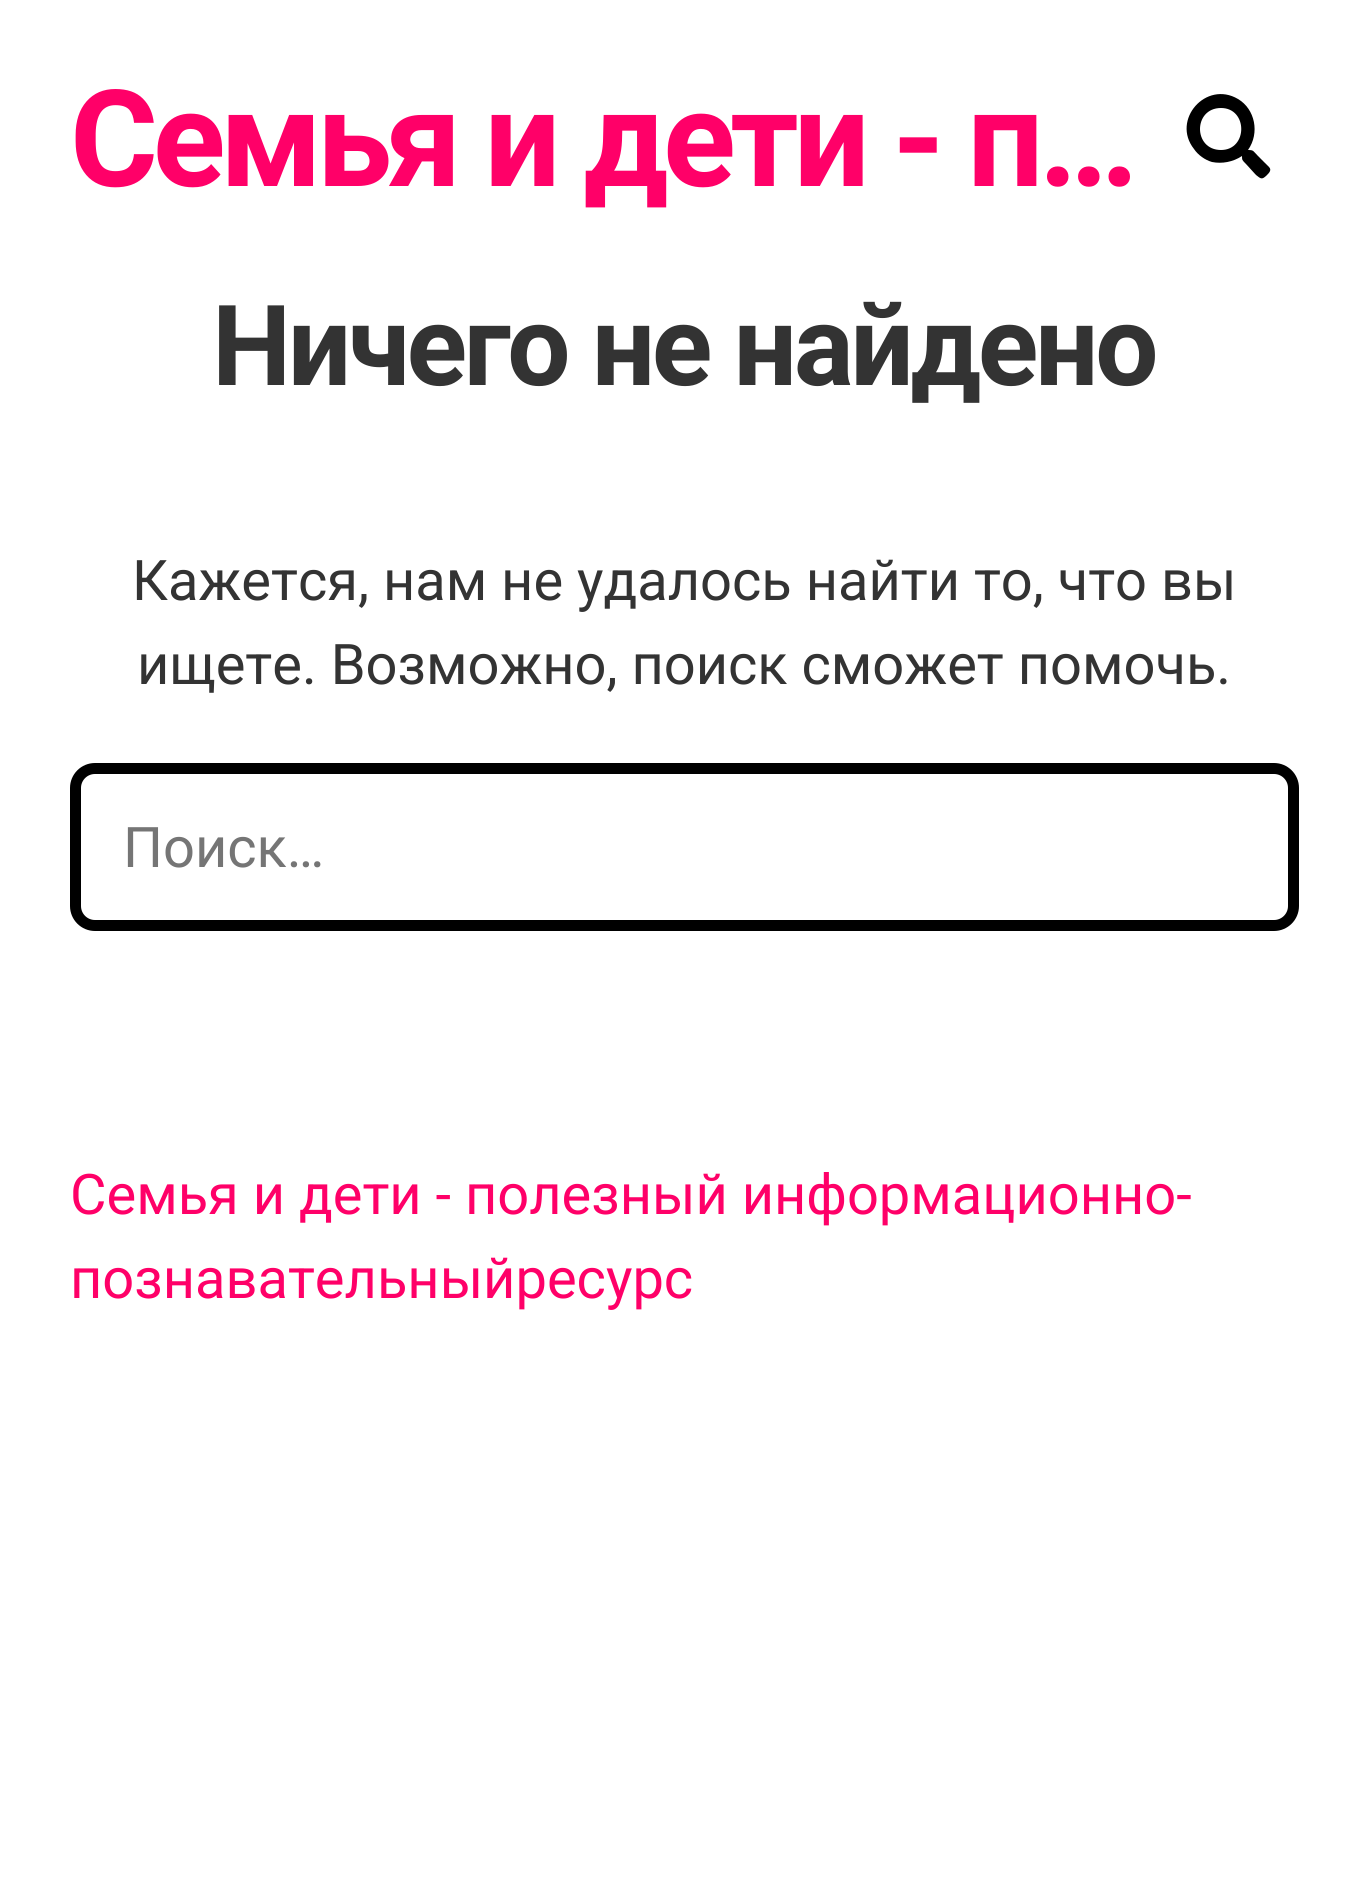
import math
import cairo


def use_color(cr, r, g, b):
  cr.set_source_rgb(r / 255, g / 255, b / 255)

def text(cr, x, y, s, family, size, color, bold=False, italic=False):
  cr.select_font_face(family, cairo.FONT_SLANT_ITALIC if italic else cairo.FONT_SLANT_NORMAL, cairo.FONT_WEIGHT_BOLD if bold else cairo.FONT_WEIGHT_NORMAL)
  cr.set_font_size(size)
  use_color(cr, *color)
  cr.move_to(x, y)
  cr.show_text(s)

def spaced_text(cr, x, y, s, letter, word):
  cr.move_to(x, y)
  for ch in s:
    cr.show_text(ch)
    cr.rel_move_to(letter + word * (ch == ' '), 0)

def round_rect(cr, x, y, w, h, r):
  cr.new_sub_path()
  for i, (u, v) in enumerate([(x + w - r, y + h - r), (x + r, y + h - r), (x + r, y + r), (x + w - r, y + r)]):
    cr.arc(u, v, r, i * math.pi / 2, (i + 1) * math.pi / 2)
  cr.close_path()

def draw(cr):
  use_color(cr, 255, 255, 255)
  cr.paint()
  use_color(cr, 0, 0, 0)
  cr.new_path()
  cr.move_to(1269, 167)
  cr.line_to(1258, 156)
  cr.curve_to(1253, 151, 1254, 150, 1248, 150)
  cr.curve_to(1260, 133, 1255, 109, 1238, 99)
  cr.curve_to(1206, 80, 1171, 120, 1194, 149)
  cr.curve_to(1198, 155, 1205, 160, 1212, 162)
  cr.curve_to(1222, 164, 1233, 162, 1242, 156)
  cr.curve_to(1242, 160, 1242, 160, 1246, 164)
  cr.line_to(1256, 175)
  cr.curve_to(1261, 179, 1262, 180, 1267, 175)
  cr.curve_to(1269, 173, 1272, 170, 1269, 167)
  cr.close_path()
  cr.move_to(1221, 150)
  cr.curve_to(1193, 150, 1193, 108, 1221, 108)
  cr.curve_to(1248, 108, 1248, 150, 1221, 150)
  cr.close_path()
  cr.fill()
  round_rect(cr, 75.5, 768.5, 1218, 157, 19.5)
  cr.set_line_width(11)
  cr.stroke()
  cr.select_font_face("Roboto", cairo.FONT_SLANT_NORMAL, cairo.FONT_WEIGHT_BOLD)
  cr.set_font_size(134.5)
  use_color(cr, 255, 0, 104)
  spaced_text(cr, 70, 186, "Семья и дети - п…", -5.4, 0)
  cr.set_font_size(112)
  use_color(cr, 51, 51, 51)
  spaced_text(cr, 212, 385, "Ничего не найдено", -3.4, 0)
  text(cr, 132, 600, "Кажется, нам не удалось найти то, что вы", "Roboto", 56, (51, 51, 51))
  text(cr, 137, 684, "ищете. Возможно, поиск сможет помочь.", "Roboto", 56, (51, 51, 51))
  text(cr, 123, 867, "Поиск…", "Roboto", 56, (117, 117, 117))
  text(cr, 70, 1214, "Семья и дети - полезный информационно-", "Roboto", 56, (255, 0, 104))
  text(cr, 70, 1298, "познавательныйресурс", "Roboto", 56, (255, 0, 104))


surface = cairo.ImageSurface(cairo.FORMAT_RGB24, 1367, 1878)
cr = cairo.Context(surface)
options = cairo.FontOptions()
options.set_hint_metrics(cairo.HINT_METRICS_OFF)
options.set_hint_style(cairo.HINT_STYLE_NONE)
cr.set_font_options(options)
cr.set_miter_limit(4)
draw(cr)
surface.write_to_png("out.png")
